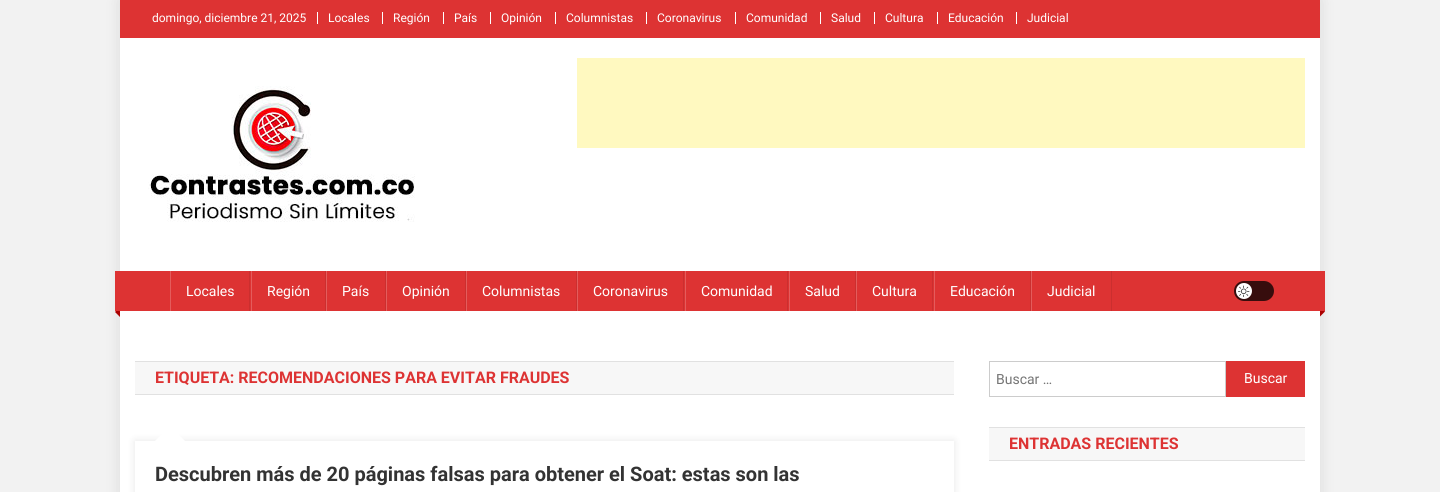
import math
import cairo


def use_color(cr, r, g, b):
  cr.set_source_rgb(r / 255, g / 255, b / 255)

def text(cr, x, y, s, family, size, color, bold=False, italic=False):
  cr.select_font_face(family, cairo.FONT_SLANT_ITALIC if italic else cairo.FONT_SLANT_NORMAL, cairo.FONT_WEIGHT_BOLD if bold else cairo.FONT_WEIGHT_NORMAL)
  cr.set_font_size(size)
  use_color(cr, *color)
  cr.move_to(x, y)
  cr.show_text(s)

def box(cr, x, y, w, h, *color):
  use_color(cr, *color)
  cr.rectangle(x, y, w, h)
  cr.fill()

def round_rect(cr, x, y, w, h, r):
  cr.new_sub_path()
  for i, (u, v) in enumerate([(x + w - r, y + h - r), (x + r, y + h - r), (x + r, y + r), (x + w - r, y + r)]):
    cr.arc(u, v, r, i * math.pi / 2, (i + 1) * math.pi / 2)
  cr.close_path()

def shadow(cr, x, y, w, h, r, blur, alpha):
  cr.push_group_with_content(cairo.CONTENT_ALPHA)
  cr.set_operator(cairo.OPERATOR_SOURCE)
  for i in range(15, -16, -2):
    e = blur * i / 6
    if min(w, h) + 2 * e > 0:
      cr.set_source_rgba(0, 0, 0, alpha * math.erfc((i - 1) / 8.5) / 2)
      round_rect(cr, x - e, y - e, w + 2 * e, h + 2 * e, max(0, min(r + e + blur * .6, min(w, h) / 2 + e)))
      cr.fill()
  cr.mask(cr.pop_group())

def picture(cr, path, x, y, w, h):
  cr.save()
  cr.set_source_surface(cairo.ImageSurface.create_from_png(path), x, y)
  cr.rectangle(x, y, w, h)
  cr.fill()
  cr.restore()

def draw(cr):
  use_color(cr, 242, 242, 242)
  cr.paint()
  use_color(cr, 0, 0, 0)
  shadow(cr, 120, 0, 1200, 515, 0, 7.5, 0.1)
  box(cr, 120, 38, 1200, 454, 255, 255, 255)
  box(cr, 120, 0, 1200, 38, 221, 51, 51)
  box(cr, 317, 12, 1, 12, 255, 255, 255)
  box(cr, 382, 12, 1, 12, 255, 255, 255)
  box(cr, 443, 12, 1, 12, 255, 255, 255)
  box(cr, 490, 12, 1, 12, 255, 255, 255)
  box(cr, 555, 12, 1, 12, 255, 255, 255)
  box(cr, 646, 12, 1, 12, 255, 255, 255)
  box(cr, 735, 12, 1, 12, 255, 255, 255)
  box(cr, 820, 12, 1, 12, 255, 255, 255)
  box(cr, 874, 12, 1, 12, 255, 255, 255)
  box(cr, 937, 12, 1, 12, 255, 255, 255)
  box(cr, 1016, 12, 1, 12, 255, 255, 255)
  picture(cr, "img_01.png", 148, 86, 267, 136)
  box(cr, 577, 58, 728, 90, 255, 249, 192)
  box(cr, 120, 271, 1200, 40, 221, 51, 51)
  use_color(cr, 171, 1, 1)
  cr.new_path()
  cr.move_to(120, 307)
  cr.line_to(120, 317)
  cr.line_to(115, 312)
  cr.close_path()
  cr.fill()
  box(cr, 115, 271, 5, 40, 221, 51, 51)
  box(cr, 249, 271, 1, 40, 203, 47, 47)
  box(cr, 170, 271, 1, 40, 228, 92, 92)
  box(cr, 325, 271, 1, 40, 203, 47, 47)
  box(cr, 251, 271, 1, 40, 228, 92, 92)
  box(cr, 385, 271, 1, 40, 203, 47, 47)
  box(cr, 326, 271, 1, 40, 228, 92, 92)
  box(cr, 465, 271, 1, 40, 203, 47, 47)
  box(cr, 386, 271, 1, 40, 228, 92, 92)
  box(cr, 576, 271, 1, 40, 203, 47, 47)
  box(cr, 466, 271, 1, 40, 228, 92, 92)
  box(cr, 683, 271, 1, 40, 203, 47, 47)
  box(cr, 577, 271, 1, 40, 228, 92, 92)
  box(cr, 787, 271, 1, 40, 203, 47, 47)
  box(cr, 685, 271, 1, 40, 228, 92, 92)
  box(cr, 855, 271, 1, 40, 203, 47, 47)
  box(cr, 789, 271, 1, 40, 228, 92, 92)
  box(cr, 932, 271, 1, 40, 203, 47, 47)
  box(cr, 856, 271, 1, 40, 228, 92, 92)
  box(cr, 1030, 271, 1, 40, 203, 47, 47)
  box(cr, 934, 271, 1, 40, 228, 92, 92)
  box(cr, 1111, 271, 1, 40, 203, 47, 47)
  box(cr, 1031, 271, 1, 40, 228, 92, 92)
  use_color(cr, 55, 13, 13)
  round_rect(cr, 1234, 281, 40, 20, 10)
  cr.fill()
  use_color(cr, 255, 255, 255)
  cr.arc(1244, 291, 8, 0, 2 * math.pi)
  cr.fill()
  picture(cr, "img_02.png", 1238, 285, 12, 12)
  use_color(cr, 171, 1, 1)
  cr.new_path()
  cr.move_to(1320, 316.5)
  cr.line_to(1320, 306.5)
  cr.line_to(1325, 311.5)
  cr.close_path()
  cr.fill()
  box(cr, 1320, 271, 5, 40, 221, 51, 51)
  box(cr, 135, 362, 819, 32, 247, 247, 247)
  box(cr, 135, 361, 819, 1, 225, 225, 225)
  box(cr, 135, 394, 819, 1, 225, 225, 225)
  cr.save()
  cr.set_fill_rule(cairo.FILL_RULE_EVEN_ODD)
  cr.new_path()
  cr.move_to(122, 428)
  cr.line_to(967, 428)
  cr.line_to(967, 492)
  cr.line_to(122, 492)
  cr.close_path()
  cr.move_to(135, 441)
  cr.line_to(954, 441)
  cr.line_to(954, 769)
  cr.line_to(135, 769)
  cr.close_path()
  cr.clip()
  use_color(cr, 0, 0, 0)
  shadow(cr, 135, 441, 819, 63, 0, 4, 0.1)
  cr.restore()
  use_color(cr, 255, 255, 255)
  cr.new_path()
  cr.move_to(185, 441)
  cr.line_to(155, 441)
  cr.line_to(170, 426)
  cr.close_path()
  cr.fill()
  cr.rectangle(989.5, 361.5, 236, 35)
  use_color(cr, 204, 204, 204)
  cr.set_line_width(1)
  cr.stroke()
  box(cr, 1226, 361, 79, 36, 221, 51, 51)
  box(cr, 989, 428, 316, 32, 247, 247, 247)
  box(cr, 989, 427, 316, 1, 225, 225, 225)
  box(cr, 989, 460, 316, 1, 225, 225, 225)
  text(cr, 152, 22, "domingo, diciembre 21, 2025", "Roboto", 12, (255, 255, 255))
  text(cr, 328, 22, "Locales", "Roboto", 12, (255, 255, 255))
  text(cr, 393, 22, "Región", "Roboto", 12, (255, 255, 255))
  text(cr, 454, 22, "País", "Roboto", 12, (255, 255, 255))
  text(cr, 501, 22, "Opinión", "Roboto", 12, (255, 255, 255))
  text(cr, 566, 22, "Columnistas", "Roboto", 12, (255, 255, 255))
  text(cr, 657, 22, "Coronavirus", "Roboto", 12, (255, 255, 255))
  text(cr, 746, 22, "Comunidad", "Roboto", 12, (255, 255, 255))
  text(cr, 831, 22, "Salud", "Roboto", 12, (255, 255, 255))
  text(cr, 885, 22, "Cultura", "Roboto", 12, (255, 255, 255))
  text(cr, 948, 22, "Educación", "Roboto", 12, (255, 255, 255))
  text(cr, 1027, 22, "Judicial", "Roboto", 12, (255, 255, 255))
  text(cr, 186, 296, "Locales", "Roboto", 14, (255, 255, 255))
  text(cr, 267, 296, "Región", "Roboto", 14, (255, 255, 255))
  text(cr, 342, 296, "País", "Roboto", 14, (255, 255, 255))
  text(cr, 402, 296, "Opinión", "Roboto", 14, (255, 255, 255))
  text(cr, 482, 296, "Columnistas", "Roboto", 14, (255, 255, 255))
  text(cr, 593, 296, "Coronavirus", "Roboto", 14, (255, 255, 255))
  text(cr, 701, 296, "Comunidad", "Roboto", 14, (255, 255, 255))
  text(cr, 805, 296, "Salud", "Roboto", 14, (255, 255, 255))
  text(cr, 872, 296, "Cultura", "Roboto", 14, (255, 255, 255))
  text(cr, 950, 296, "Educación", "Roboto", 14, (255, 255, 255))
  text(cr, 1047, 296, "Judicial", "Roboto", 14, (255, 255, 255))
  text(cr, 155, 383, "ETIQUETA: RECOMENDACIONES PARA EVITAR FRAUDES", "Roboto", 16, (221, 51, 51), bold=True)
  text(cr, 155, 481, "Descubren más de 20 páginas falsas para obtener el Soat: estas son las", "Roboto", 20, (51, 51, 51), bold=True)
  text(cr, 996, 384, "Buscar …", "Roboto", 14, (117, 117, 117))
  text(cr, 1244, 383, "Buscar", "Roboto", 14, (255, 255, 255))
  text(cr, 1009, 449, "ENTRADAS RECIENTES", "Roboto", 16, (221, 51, 51), bold=True)


surface = cairo.ImageSurface(cairo.FORMAT_RGB24, 1440, 492)
cr = cairo.Context(surface)
options = cairo.FontOptions()
options.set_hint_metrics(cairo.HINT_METRICS_OFF)
options.set_hint_style(cairo.HINT_STYLE_NONE)
cr.set_font_options(options)
cr.set_miter_limit(4)
draw(cr)
surface.write_to_png("out.png")
